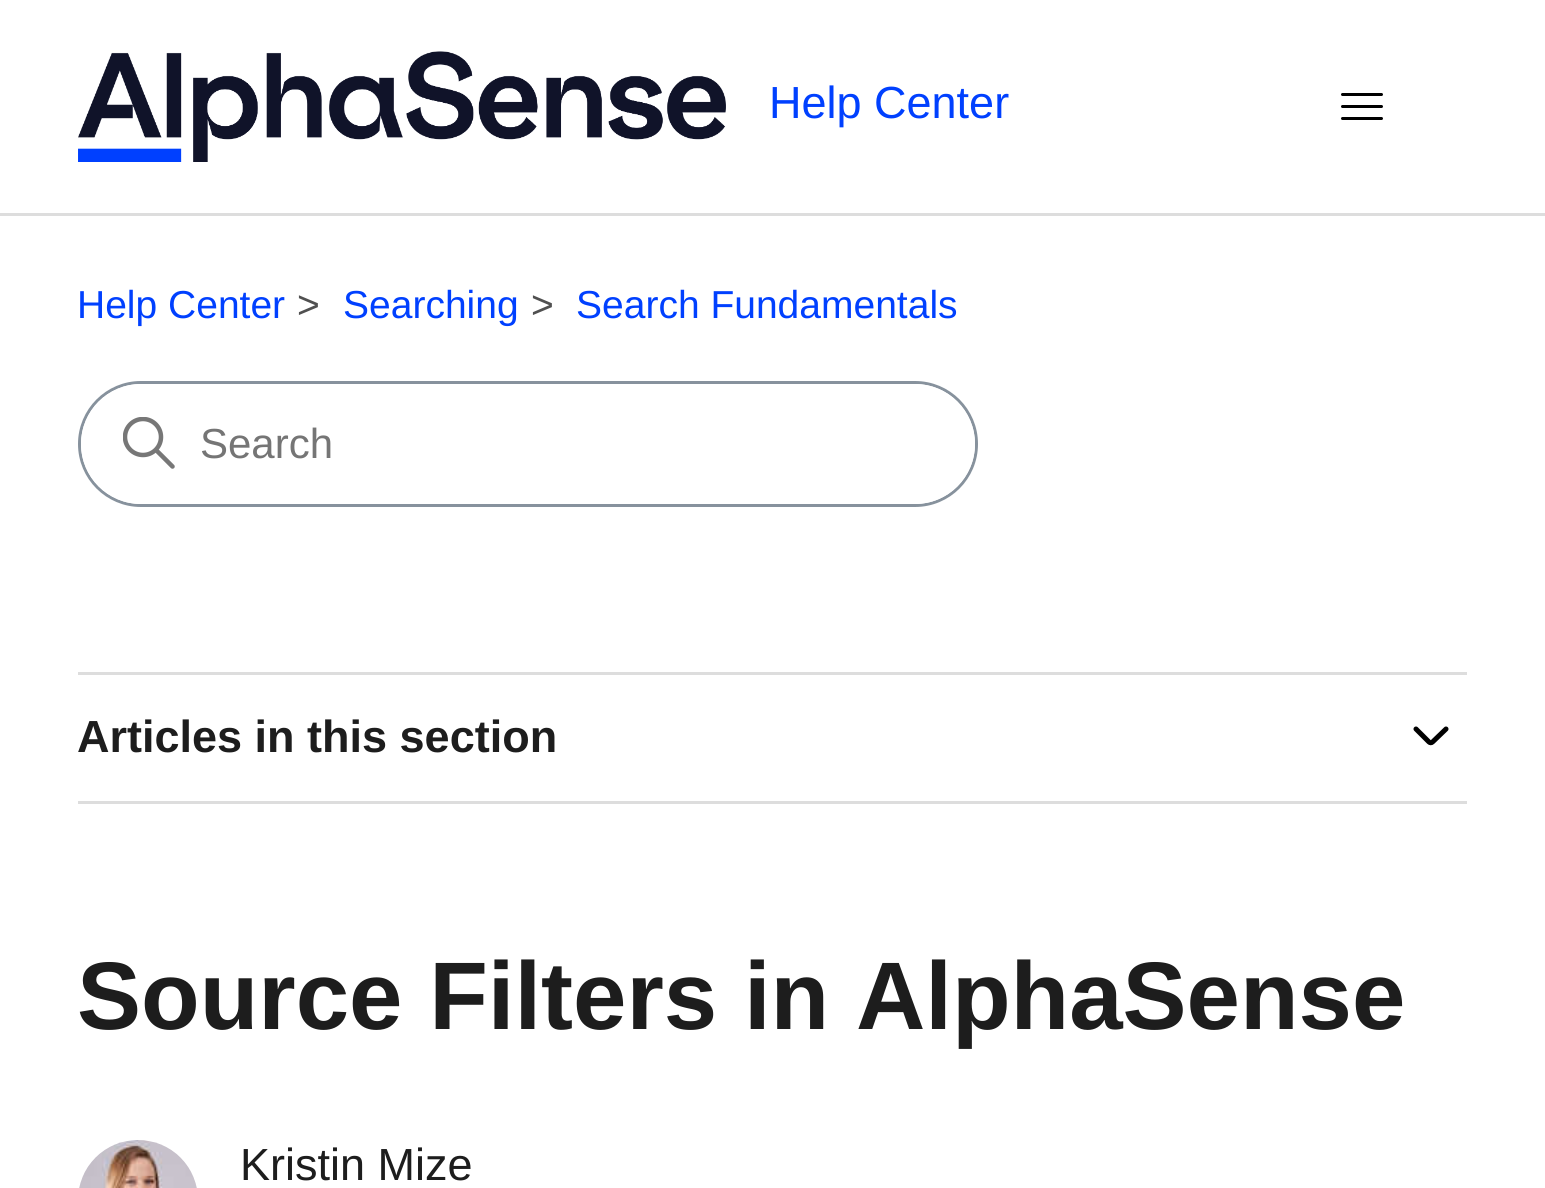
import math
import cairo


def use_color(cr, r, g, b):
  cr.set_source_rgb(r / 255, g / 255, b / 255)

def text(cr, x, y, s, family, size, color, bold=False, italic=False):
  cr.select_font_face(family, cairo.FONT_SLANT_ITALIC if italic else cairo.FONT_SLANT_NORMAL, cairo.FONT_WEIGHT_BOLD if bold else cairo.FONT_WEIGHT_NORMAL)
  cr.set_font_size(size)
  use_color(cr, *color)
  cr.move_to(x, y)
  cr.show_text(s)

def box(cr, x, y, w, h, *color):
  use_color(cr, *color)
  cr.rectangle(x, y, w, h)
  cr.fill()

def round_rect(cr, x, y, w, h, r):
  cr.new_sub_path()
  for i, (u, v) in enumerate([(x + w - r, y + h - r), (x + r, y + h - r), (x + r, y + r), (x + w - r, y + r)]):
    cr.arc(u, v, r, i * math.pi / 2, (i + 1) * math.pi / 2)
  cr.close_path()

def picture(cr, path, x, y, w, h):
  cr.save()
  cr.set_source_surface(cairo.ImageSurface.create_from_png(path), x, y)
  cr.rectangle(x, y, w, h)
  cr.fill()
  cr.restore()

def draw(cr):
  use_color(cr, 255, 255, 255)
  cr.paint()
  picture(cr, "img_01.png", 78, 51, 648, 111)
  cr.new_path()
  cr.move_to(1342.5, 94.5)
  cr.line_to(1381.5, 94.5)
  cr.move_to(1342.5, 106.5)
  cr.line_to(1381.5, 106.5)
  cr.move_to(1342.5, 118.5)
  cr.line_to(1381.5, 118.5)
  use_color(cr, 0, 0, 0)
  cr.set_line_width(3)
  cr.set_line_cap(cairo.LINE_CAP_ROUND)
  cr.stroke()
  box(cr, 0, 213, 1545, 3, 221, 221, 221)
  round_rect(cr, 79.5, 382.5, 897, 123, 61.5)
  use_color(cr, 135, 146, 157)
  cr.set_line_cap(cairo.LINE_CAP_BUTT)
  cr.stroke()
  use_color(cr, 255, 255, 255)
  round_rect(cr, 81, 384, 894, 120, 60)
  cr.fill()
  cr.save()
  cr.rectangle(123, 417, 54, 54)
  cr.clip()
  cr.arc(143, 437, 18, 0, 2 * math.pi)
  use_color(cr, 119, 119, 119)
  cr.set_line_width(4.5)
  cr.stroke()
  cr.restore()
  cr.new_path()
  cr.move_to(172.5, 466.5)
  cr.line_to(157, 451)
  use_color(cr, 119, 119, 119)
  cr.set_line_width(4.5)
  cr.set_line_cap(cairo.LINE_CAP_ROUND)
  cr.stroke()
  box(cr, 78, 672, 1389, 3, 221, 221, 221)
  box(cr, 78, 801, 1389, 3, 221, 221, 221)
  cr.new_path()
  cr.move_to(1416, 729)
  cr.line_to(1429, 742)
  cr.curve_to(1430, 743, 1431.5, 743, 1432.5, 742)
  cr.line_to(1446, 729)
  use_color(cr, 0, 0, 0)
  cr.set_line_width(5)
  cr.stroke()
  picture(cr, "img_02.png", 79, 1140, 118, 48)
  text(cr, 769, 118, "Help Center", "Liberation Sans", 45, (0, 64, 255))
  text(cr, 77, 318, "Help Center", "Liberation Sans", 39, (0, 64, 255))
  text(cr, 297, 318, ">", "Liberation Sans", 39, (80, 80, 80))
  text(cr, 343, 318, "Searching", "Liberation Sans", 39, (0, 64, 255))
  text(cr, 531, 318, ">", "Liberation Sans", 39, (80, 80, 80))
  text(cr, 576, 318, "Search Fundamentals", "Liberation Sans", 39, (0, 64, 255))
  text(cr, 200, 458, "Search", "Liberation Sans", 42, (117, 117, 117))
  text(cr, 77, 752, "Articles in this section", "Liberation Sans", 45, (29, 29, 29), bold=True)
  text(cr, 77, 1029, "Source Filters in AlphaSense", "Liberation Sans", 96, (29, 29, 29), bold=True)
  text(cr, 240, 1180, "Kristin Mize", "Liberation Sans", 45, (29, 29, 29))


surface = cairo.ImageSurface(cairo.FORMAT_RGB24, 1545, 1188)
cr = cairo.Context(surface)
options = cairo.FontOptions()
options.set_hint_metrics(cairo.HINT_METRICS_OFF)
options.set_hint_style(cairo.HINT_STYLE_NONE)
cr.set_font_options(options)
cr.set_miter_limit(4)
draw(cr)
surface.write_to_png("out.png")
